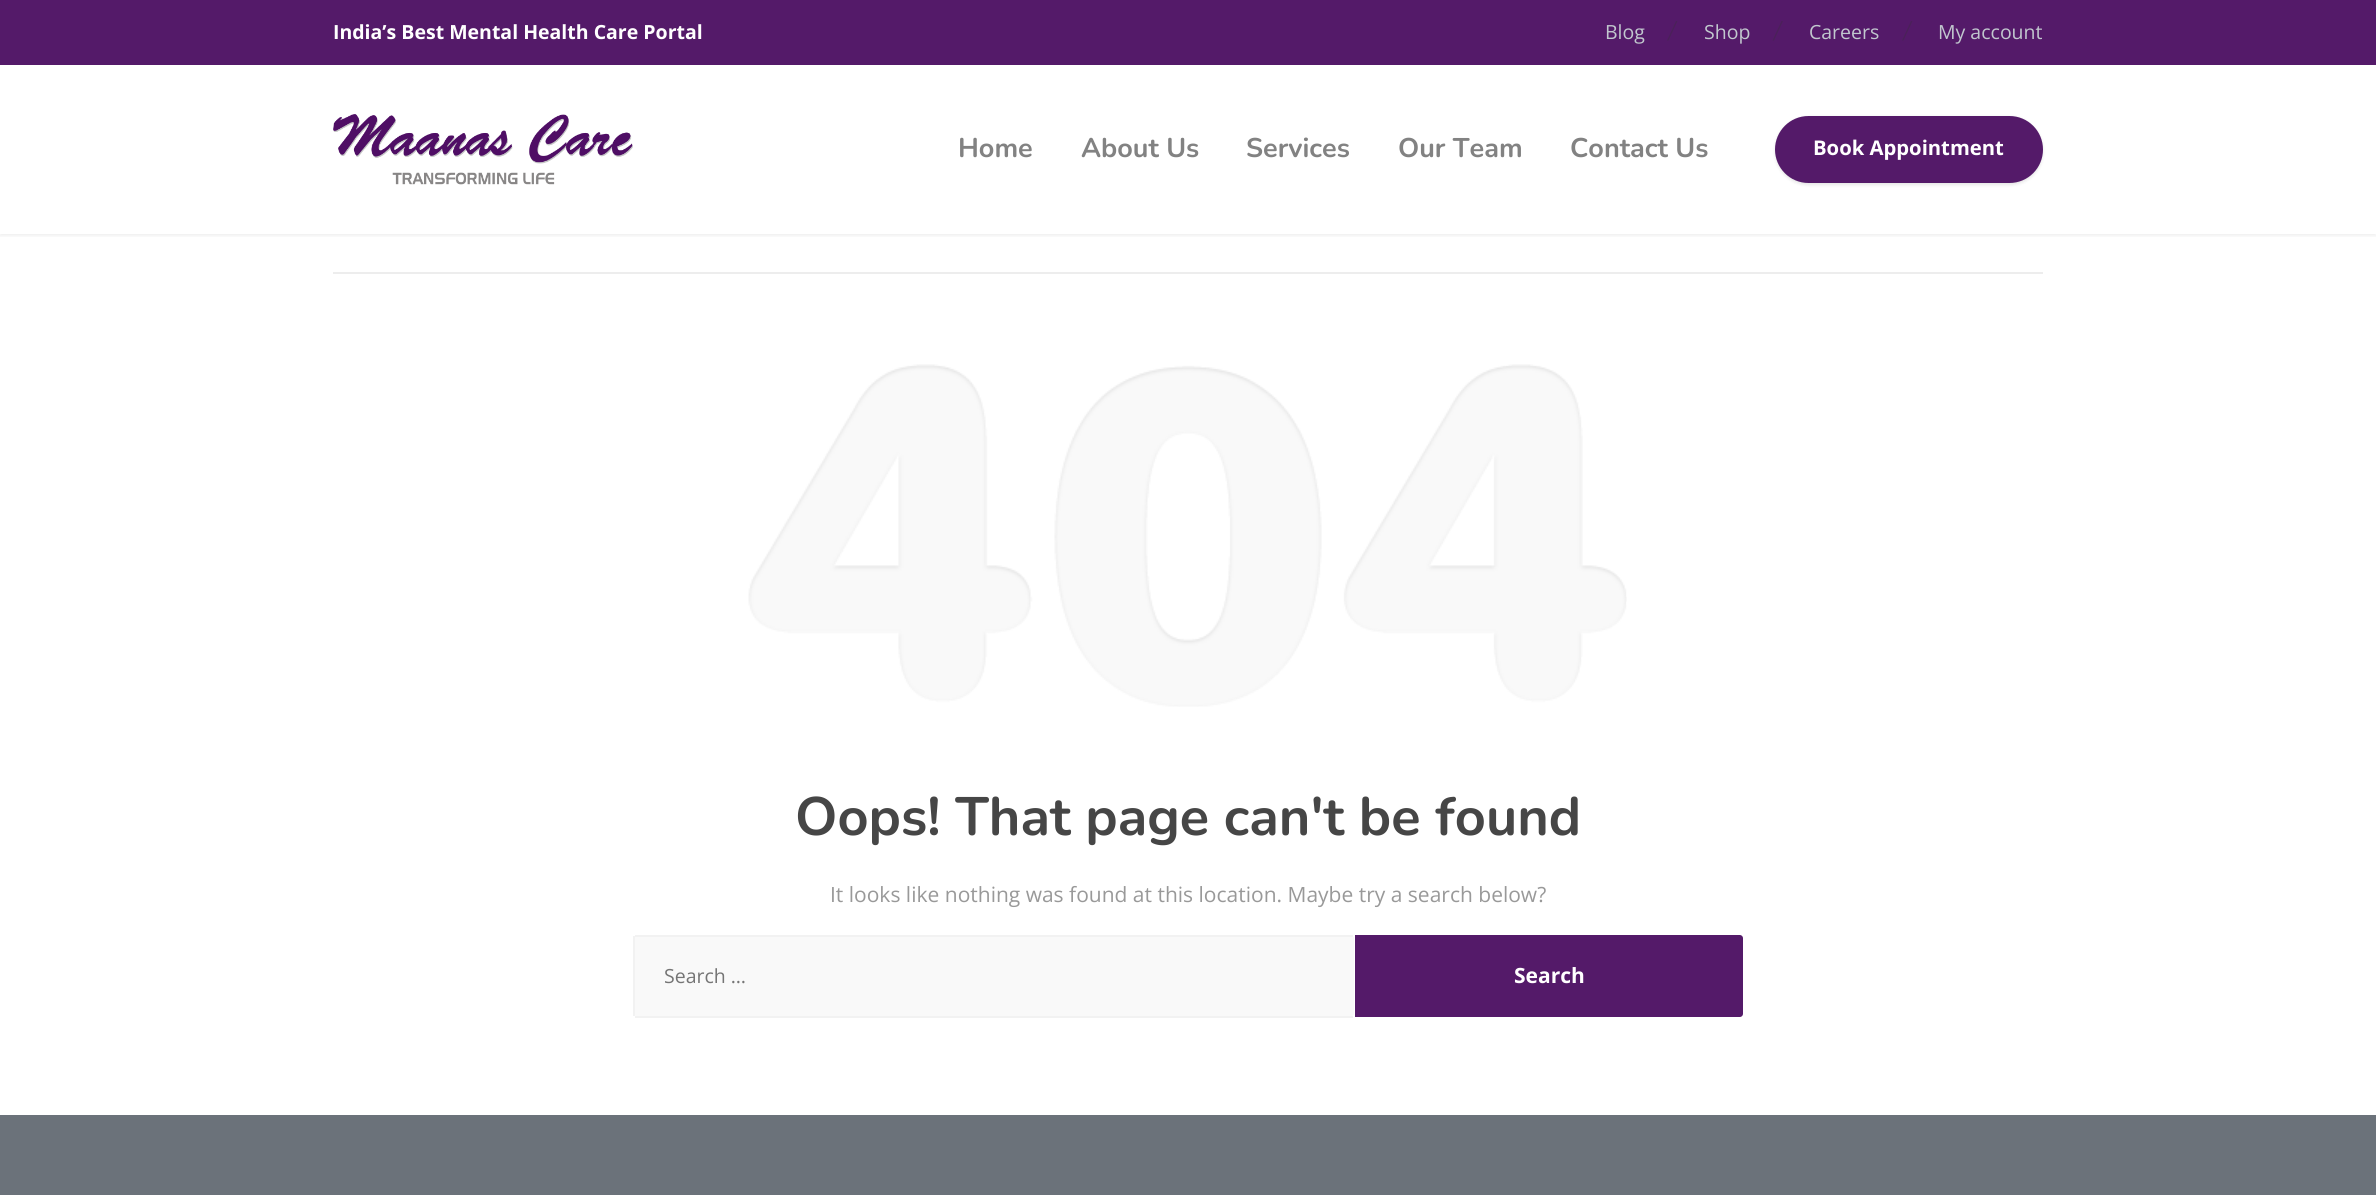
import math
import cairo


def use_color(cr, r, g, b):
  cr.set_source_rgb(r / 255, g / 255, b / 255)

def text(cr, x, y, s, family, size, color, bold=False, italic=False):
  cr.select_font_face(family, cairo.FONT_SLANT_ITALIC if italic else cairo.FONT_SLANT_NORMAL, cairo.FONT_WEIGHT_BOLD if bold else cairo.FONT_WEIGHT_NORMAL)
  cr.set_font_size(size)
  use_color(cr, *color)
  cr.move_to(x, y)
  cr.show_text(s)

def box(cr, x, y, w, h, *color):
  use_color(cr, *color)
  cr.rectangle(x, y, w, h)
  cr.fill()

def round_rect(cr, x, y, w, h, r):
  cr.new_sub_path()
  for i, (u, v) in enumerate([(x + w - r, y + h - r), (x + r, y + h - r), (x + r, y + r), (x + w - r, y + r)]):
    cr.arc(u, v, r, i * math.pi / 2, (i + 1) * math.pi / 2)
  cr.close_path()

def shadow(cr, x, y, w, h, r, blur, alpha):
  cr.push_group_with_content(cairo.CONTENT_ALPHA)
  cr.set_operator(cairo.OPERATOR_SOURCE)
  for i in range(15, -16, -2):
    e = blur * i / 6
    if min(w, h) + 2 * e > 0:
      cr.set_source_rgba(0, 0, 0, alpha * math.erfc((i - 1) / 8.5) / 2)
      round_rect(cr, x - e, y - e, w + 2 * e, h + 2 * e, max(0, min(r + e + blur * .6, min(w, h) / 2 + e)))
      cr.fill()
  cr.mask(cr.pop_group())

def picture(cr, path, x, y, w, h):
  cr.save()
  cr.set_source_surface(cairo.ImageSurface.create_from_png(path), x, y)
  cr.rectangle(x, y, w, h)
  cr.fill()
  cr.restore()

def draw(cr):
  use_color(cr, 255, 255, 255)
  cr.paint()
  box(cr, 0, 0, 2376, 65, 84, 26, 105)
  use_color(cr, 74, 33, 89)
  cr.new_path()
  cr.move_to(1676, 21)
  cr.line_to(1677.5, 21)
  cr.line_to(1668.5, 40.5)
  cr.line_to(1667, 40.5)
  cr.close_path()
  cr.fill()
  cr.new_path()
  cr.move_to(1781.5, 21)
  cr.line_to(1783, 21)
  cr.line_to(1774, 40.5)
  cr.line_to(1772.5, 40.5)
  cr.close_path()
  cr.fill()
  cr.new_path()
  cr.move_to(1911, 21)
  cr.line_to(1912.5, 21)
  cr.line_to(1903.5, 40.5)
  cr.line_to(1902, 40.5)
  cr.close_path()
  cr.fill()
  cr.save()
  cr.rectangle(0, 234, 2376, 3)
  cr.clip()
  use_color(cr, 50, 50, 50)
  shadow(cr, 0, 66, 2376, 170, 0, 2, 0.08)
  cr.restore()
  picture(cr, "img_01.png", 333, 114, 300, 71)
  use_color(cr, 0, 0, 0)
  shadow(cr, 1775, 117, 268, 68, 34, 1.5, 0.1)
  use_color(cr, 84, 26, 105)
  round_rect(cr, 1775, 116, 268, 67, 33.5)
  cr.fill()
  box(cr, 333, 272, 1710, 2, 237, 237, 237)
  picture(cr, "img_02.png", 748, 364, 879, 343)
  use_color(cr, 249, 249, 249)
  cr.new_path()
  cr.move_to(636, 936)
  cr.line_to(1352, 936)
  cr.curve_to(1353, 936, 1354, 937, 1354, 938)
  cr.line_to(1354, 1014)
  cr.curve_to(1354, 1015, 1353, 1016, 1352, 1016)
  cr.line_to(636, 1016)
  cr.curve_to(635, 1016, 634, 1015, 634, 1014)
  cr.line_to(634, 938)
  cr.curve_to(634, 937, 635, 936, 636, 936)
  cr.close_path()
  cr.fill()
  box(cr, 635, 935, 718, 2, 242, 242, 242)
  box(cr, 635, 1016, 718, 2, 242, 242, 242)
  box(cr, 633, 936, 2, 80, 242, 242, 242)
  use_color(cr, 84, 26, 105)
  cr.new_path()
  cr.move_to(1355, 935)
  cr.line_to(1740, 935)
  cr.curve_to(1741.5, 935, 1743, 936.5, 1743, 938)
  cr.line_to(1743, 1014)
  cr.curve_to(1743, 1015.5, 1741.5, 1017, 1740, 1017)
  cr.line_to(1355, 1017)
  cr.close_path()
  cr.fill()
  box(cr, 0, 1115, 2376, 80, 107, 114, 122)
  text(cr, 333, 39, "India’s Best Mental Health Care Portal", "Open Sans", 19.5, (255, 255, 255), bold=True)
  text(cr, 1605, 39, "Blog", "Open Sans", 19.5, (193, 199, 206))
  text(cr, 1704, 39, "Shop", "Open Sans", 19.5, (193, 199, 206))
  text(cr, 1809, 39, "Careers", "Open Sans", 19.5, (193, 199, 206))
  text(cr, 1938, 39, "My account", "Open Sans", 19.5, (193, 199, 206))
  text(cr, 958, 157, "Home", "Nunito", 27, (130, 130, 130), bold=True)
  text(cr, 1081, 157, "About Us", "Nunito", 27, (130, 130, 130), bold=True)
  text(cr, 1246, 157, "Services", "Nunito", 27, (130, 130, 130), bold=True)
  text(cr, 1398, 157, "Our Team", "Nunito", 27, (130, 130, 130), bold=True)
  text(cr, 1570, 157, "Contact Us", "Nunito", 27, (130, 130, 130), bold=True)
  text(cr, 1813, 155, "Book Appointment", "Open Sans", 20.25, (255, 255, 255), bold=True)
  text(cr, 795, 835, "Oops! That page can't be found", "Nunito", 54, (70, 70, 70), bold=True)
  text(cr, 830, 902, "It looks like nothing was found at this location. Maybe try a search below?", "Open Sans", 21, (153, 153, 153))
  text(cr, 664, 983, "Search …", "Open Sans", 19.5, (117, 117, 117))
  text(cr, 1514, 983, "Search", "Open Sans", 21, (255, 255, 255), bold=True)


surface = cairo.ImageSurface(cairo.FORMAT_RGB24, 2376, 1195)
cr = cairo.Context(surface)
options = cairo.FontOptions()
options.set_hint_metrics(cairo.HINT_METRICS_OFF)
options.set_hint_style(cairo.HINT_STYLE_NONE)
cr.set_font_options(options)
cr.set_miter_limit(4)
draw(cr)
surface.write_to_png("out.png")
